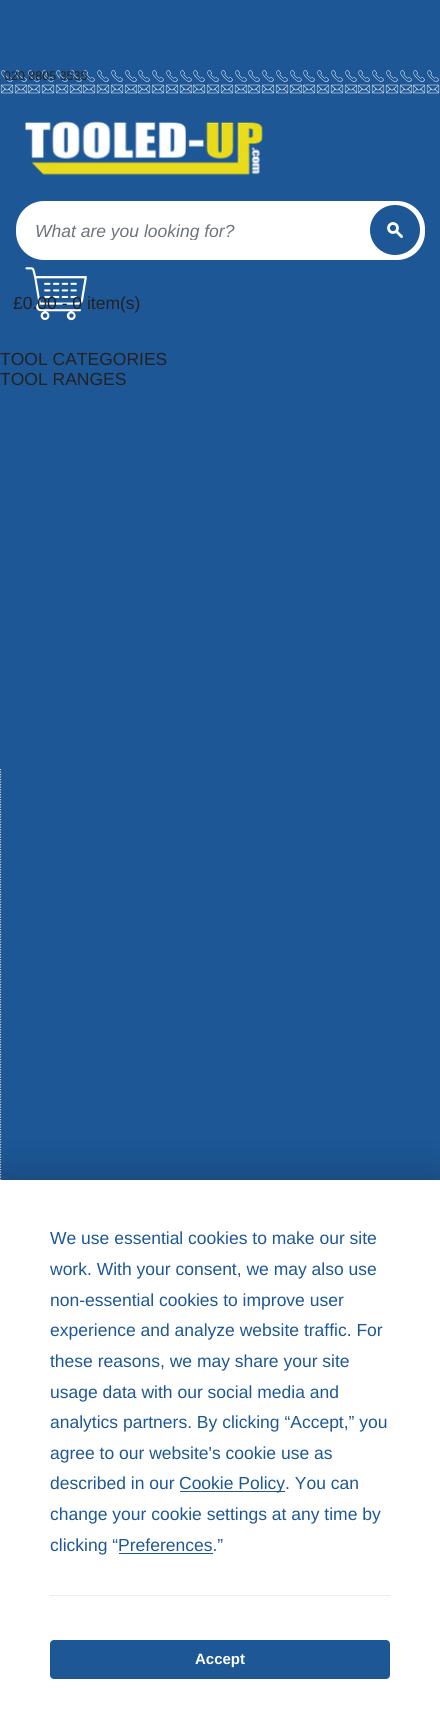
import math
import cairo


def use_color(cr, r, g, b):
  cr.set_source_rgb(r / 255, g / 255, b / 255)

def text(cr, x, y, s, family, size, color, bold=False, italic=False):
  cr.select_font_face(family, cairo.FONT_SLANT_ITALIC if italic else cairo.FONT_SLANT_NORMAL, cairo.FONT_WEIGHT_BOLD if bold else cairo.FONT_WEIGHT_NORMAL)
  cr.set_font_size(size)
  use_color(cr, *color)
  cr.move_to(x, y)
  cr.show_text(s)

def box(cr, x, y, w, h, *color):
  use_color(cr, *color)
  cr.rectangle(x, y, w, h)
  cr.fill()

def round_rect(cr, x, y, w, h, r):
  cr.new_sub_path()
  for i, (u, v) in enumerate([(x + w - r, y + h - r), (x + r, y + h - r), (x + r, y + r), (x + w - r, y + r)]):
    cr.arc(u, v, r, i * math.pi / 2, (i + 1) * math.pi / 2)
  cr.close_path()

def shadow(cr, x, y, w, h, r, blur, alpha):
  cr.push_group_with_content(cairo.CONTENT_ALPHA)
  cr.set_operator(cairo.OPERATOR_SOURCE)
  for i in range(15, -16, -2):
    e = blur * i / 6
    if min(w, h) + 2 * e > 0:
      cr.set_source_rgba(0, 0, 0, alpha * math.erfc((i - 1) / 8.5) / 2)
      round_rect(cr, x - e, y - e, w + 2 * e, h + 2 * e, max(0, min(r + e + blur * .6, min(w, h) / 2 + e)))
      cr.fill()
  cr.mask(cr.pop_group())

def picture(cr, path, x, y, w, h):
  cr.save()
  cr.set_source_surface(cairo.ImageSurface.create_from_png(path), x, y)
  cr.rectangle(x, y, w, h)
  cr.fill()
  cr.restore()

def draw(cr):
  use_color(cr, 29, 87, 150)
  cr.paint()
  picture(cr, "img_01.png", 1, 70, 438, 12)
  picture(cr, "img_02.png", 0, 84, 440, 10)
  picture(cr, "img_03.png", 25, 121, 238, 55)
  use_color(cr, 255, 255, 255)
  round_rect(cr, 14.5, 199.5, 412, 62, 29.5)
  cr.fill_preserve()
  use_color(cr, 29, 87, 150)
  cr.set_line_width(3)
  cr.stroke()
  cr.arc(395, 230, 25, 0, 2 * math.pi)
  cr.fill()
  picture(cr, "img_04.png", 387, 222, 16, 16)
  picture(cr, "img_05.png", 25, 267, 62, 54)
  cr.new_path()
  cr.move_to(0.5, 769)
  cr.line_to(0.5, 1029)
  use_color(cr, 204, 204, 204)
  cr.set_line_width(1.2)
  cr.set_dash([1.25, 1.25])
  cr.stroke()
  cr.new_path()
  cr.move_to(0.5, 1029)
  cr.line_to(0.5, 1409)
  cr.stroke()
  use_color(cr, 0, 0, 0)
  shadow(cr, 0, 1180, 440, 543, 0, 22, 0.25)
  box(cr, 0, 1180, 440, 542, 255, 255, 255)
  box(cr, 180, 1491, 105, 1, 29, 87, 150)
  box(cr, 119, 1553, 94, 1, 29, 87, 150)
  box(cr, 50, 1595, 340, 1, 237, 237, 239)
  use_color(cr, 29, 87, 150)
  round_rect(cr, 50.5, 1640.5, 339, 38, 3.5)
  cr.fill_preserve()
  cr.set_line_width(1)
  cr.set_dash([])
  cr.stroke()
  text(cr, 4, 80, "020 8805 3535", "Liberation Sans", 12.5, (34, 34, 34))
  text(cr, 98, 94, ".", "Liberation Sans", 12.5, (29, 87, 150))
  cr.save()
  cr.rectangle(35, 220, 298, 20)
  cr.clip()
  text(cr, 35, 237, "What are you looking for?", "Liberation Sans", 17.5, (108, 117, 125), italic=True)
  cr.restore()
  text(cr, 13, 309, "£0.00 - 0 item(s)", "Liberation Sans", 17.5, (34, 34, 34))
  text(cr, 0, 365, "TOOL CATEGORIES", "Liberation Sans", 17.5, (34, 34, 34))
  text(cr, 0, 385, "TOOL RANGES", "Liberation Sans", 17.5, (34, 34, 34))
  text(cr, 50, 1244, "We use essential cookies to make our site", "Liberation Sans", 17.5, (29, 87, 150))
  text(cr, 50, 1275, "work. With your consent, we may also use", "Liberation Sans", 17.5, (29, 87, 150))
  text(cr, 50, 1306, "non-essential cookies to improve user", "Liberation Sans", 17.5, (29, 87, 150))
  text(cr, 50, 1336, "experience and analyze website traffic. For", "Liberation Sans", 17.5, (29, 87, 150))
  text(cr, 50, 1367, "these reasons, we may share your site", "Liberation Sans", 17.5, (29, 87, 150))
  text(cr, 50, 1398, "usage data with our social media and", "Liberation Sans", 17.5, (29, 87, 150))
  text(cr, 50, 1428, "analytics partners. By clicking “Accept,” you", "Liberation Sans", 17.5, (29, 87, 150))
  text(cr, 50, 1459, "agree to our website's cookie use as", "Liberation Sans", 17.5, (29, 87, 150))
  text(cr, 50, 1489, "described in our", "Liberation Sans", 17.5, (29, 87, 150))
  text(cr, 179, 1489, "Cookie Policy. You can", "Liberation Sans", 17.5, (29, 87, 150))
  text(cr, 50, 1520, "change your cookie settings at any time by", "Liberation Sans", 17.5, (29, 87, 150))
  text(cr, 50, 1551, "clicking “Preferences.”", "Liberation Sans", 17.5, (29, 87, 150))
  text(cr, 195, 1664, "Accept", "Liberation Sans", 15, (255, 255, 255), bold=True)


surface = cairo.ImageSurface(cairo.FORMAT_RGB24, 440, 1722)
cr = cairo.Context(surface)
options = cairo.FontOptions()
options.set_hint_metrics(cairo.HINT_METRICS_OFF)
options.set_hint_style(cairo.HINT_STYLE_NONE)
cr.set_font_options(options)
cr.set_miter_limit(4)
draw(cr)
surface.write_to_png("out.png")
